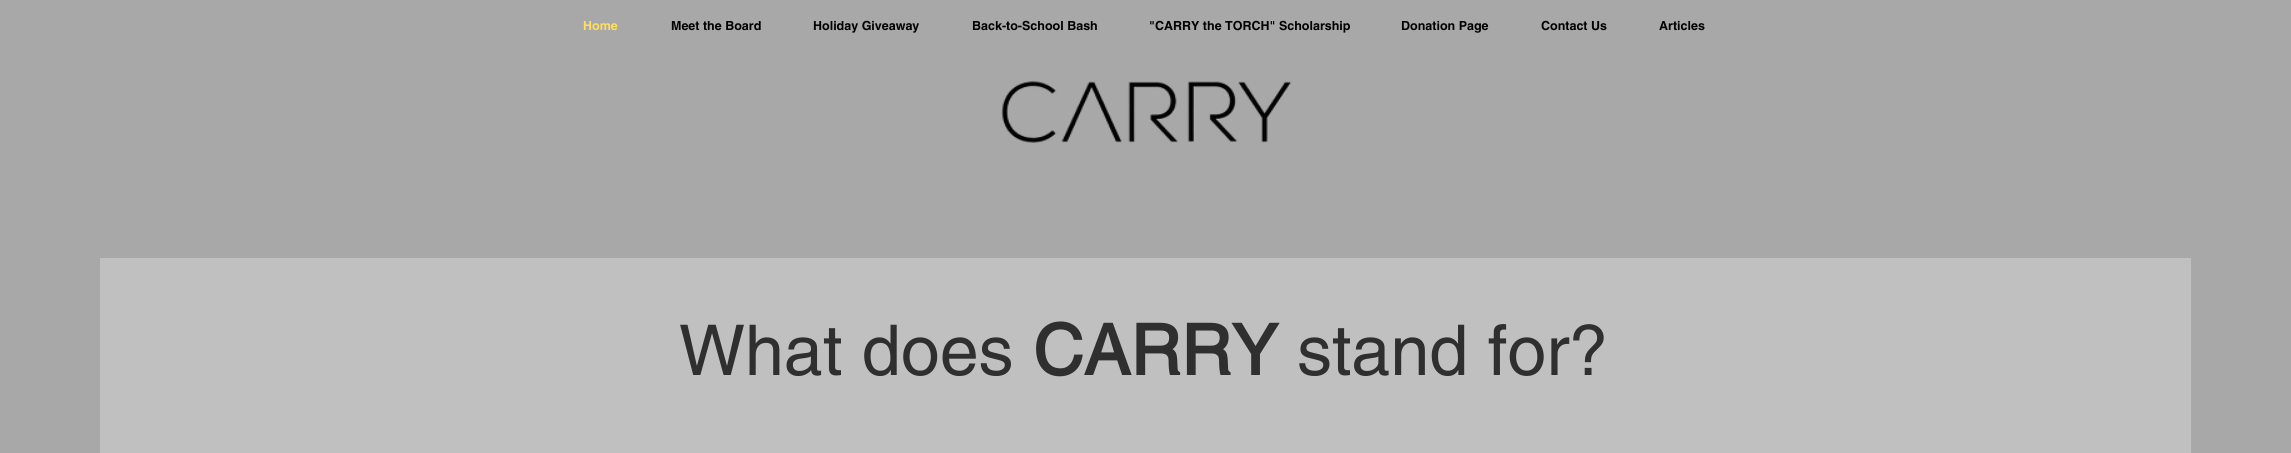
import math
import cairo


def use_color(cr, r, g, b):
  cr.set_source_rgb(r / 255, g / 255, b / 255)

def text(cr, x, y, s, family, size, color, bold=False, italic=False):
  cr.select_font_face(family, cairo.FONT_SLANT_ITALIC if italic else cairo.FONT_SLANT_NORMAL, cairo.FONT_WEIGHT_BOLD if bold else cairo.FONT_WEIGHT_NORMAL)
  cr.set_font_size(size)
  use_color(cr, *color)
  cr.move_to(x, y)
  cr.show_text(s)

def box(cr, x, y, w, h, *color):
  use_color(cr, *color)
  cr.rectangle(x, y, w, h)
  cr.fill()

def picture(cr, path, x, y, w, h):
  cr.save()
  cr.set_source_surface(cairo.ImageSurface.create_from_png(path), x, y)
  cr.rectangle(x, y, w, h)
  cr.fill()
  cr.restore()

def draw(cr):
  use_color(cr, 168, 168, 168)
  cr.paint()
  picture(cr, "img_01.png", 1001, 81, 291, 62)
  box(cr, 100, 258, 2091, 195, 192, 192, 192)
  text(cr, 583, 30, "Home", "helvetica", 12.5, (255, 222, 95), bold=True)
  text(cr, 671, 30, "Meet the Board", "helvetica", 12.5, (0, 0, 0), bold=True)
  text(cr, 813, 30, "Holiday Giveaway", "helvetica", 12.5, (0, 0, 0), bold=True)
  text(cr, 972, 30, "Back-to-School Bash", "helvetica", 12.5, (0, 0, 0), bold=True)
  text(cr, 1149, 30, "\"CARRY the TORCH\" Scholarship", "helvetica", 12.5, (0, 0, 0), bold=True)
  text(cr, 1401, 30, "Donation Page", "helvetica", 12.5, (0, 0, 0), bold=True)
  text(cr, 1541, 30, "Contact Us", "helvetica", 12.5, (0, 0, 0), bold=True)
  text(cr, 1659, 30, "Articles", "helvetica", 12.5, (0, 0, 0), bold=True)
  text(cr, 679, 375, "What does", "helvetica", 70, (47, 47, 47))
  text(cr, 1033, 375, "CARRY", "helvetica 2", 70, (47, 47, 47), bold=True)
  text(cr, 1297, 375, "stand for?", "helvetica", 70, (47, 47, 47))


surface = cairo.ImageSurface(cairo.FORMAT_RGB24, 2291, 453)
cr = cairo.Context(surface)
options = cairo.FontOptions()
options.set_hint_metrics(cairo.HINT_METRICS_OFF)
options.set_hint_style(cairo.HINT_STYLE_NONE)
cr.set_font_options(options)
cr.set_miter_limit(4)
draw(cr)
surface.write_to_png("out.png")
